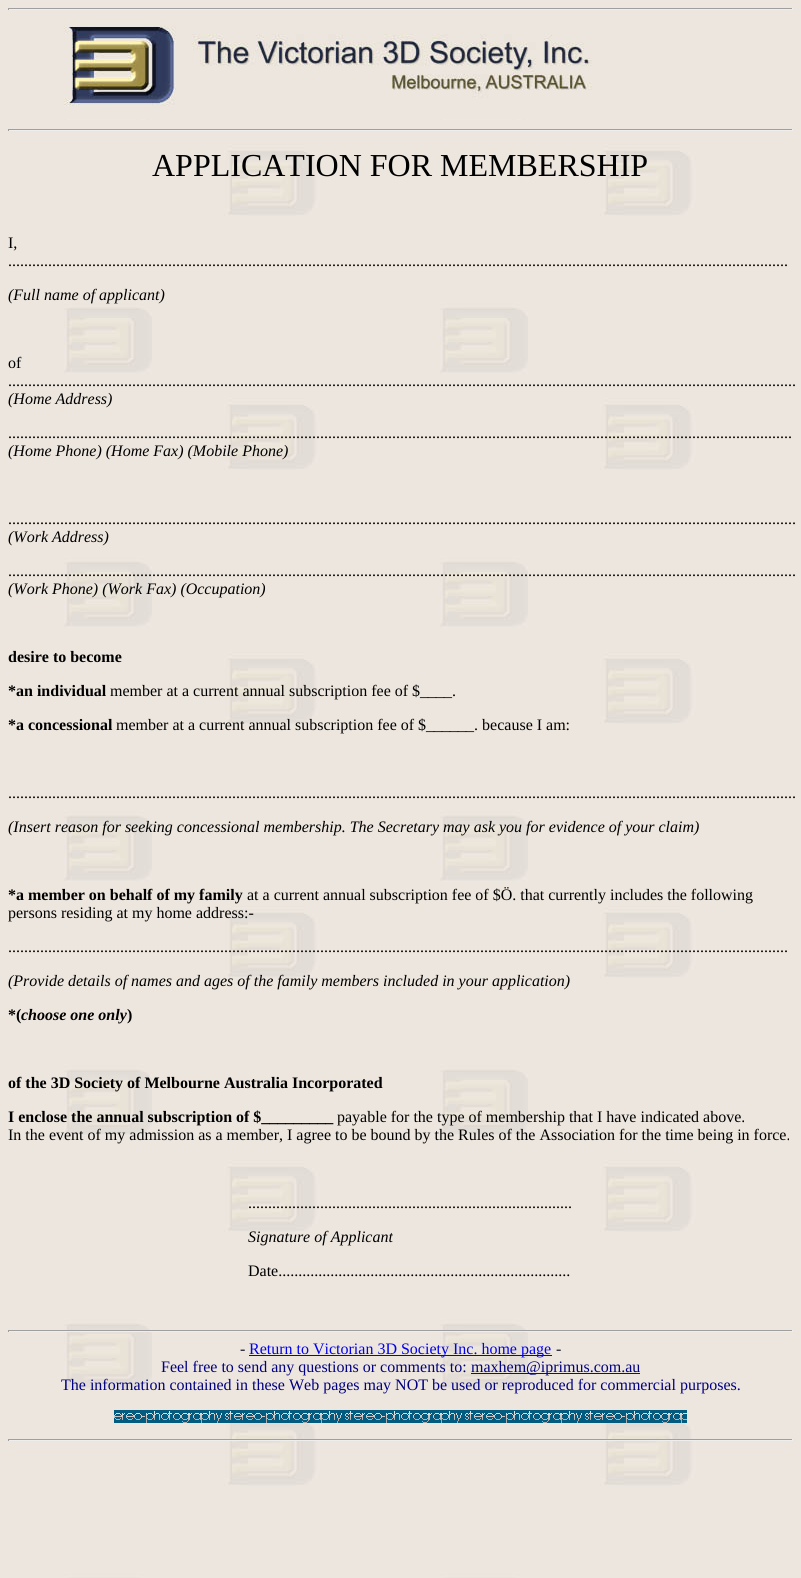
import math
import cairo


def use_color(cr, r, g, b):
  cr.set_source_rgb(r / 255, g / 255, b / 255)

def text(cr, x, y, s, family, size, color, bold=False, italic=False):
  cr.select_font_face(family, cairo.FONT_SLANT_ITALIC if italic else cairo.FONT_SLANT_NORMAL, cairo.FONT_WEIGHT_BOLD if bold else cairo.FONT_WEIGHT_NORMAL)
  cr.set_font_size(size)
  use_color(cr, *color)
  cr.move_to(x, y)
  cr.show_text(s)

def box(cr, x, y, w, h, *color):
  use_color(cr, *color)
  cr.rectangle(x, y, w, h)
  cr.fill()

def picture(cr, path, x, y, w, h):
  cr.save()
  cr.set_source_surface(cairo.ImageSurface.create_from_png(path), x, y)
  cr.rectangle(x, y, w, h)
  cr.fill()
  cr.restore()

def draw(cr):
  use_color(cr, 255, 255, 255)
  cr.paint()
  picture(cr, "img_01.png", 0, 0, 801, 1578)
  box(cr, 8, 8, 785, 1, 159, 159, 159)
  box(cr, 792, 8, 1, 2, 238, 238, 238)
  box(cr, 8, 9, 785, 1, 238, 238, 238)
  box(cr, 8, 8, 1, 2, 159, 159, 159)
  picture(cr, "img_02.png", 64, 26, 528, 93)
  box(cr, 8, 129, 785, 1, 159, 159, 159)
  box(cr, 792, 129, 1, 2, 238, 238, 238)
  box(cr, 8, 130, 785, 1, 238, 238, 238)
  box(cr, 8, 129, 1, 2, 159, 159, 159)
  box(cr, 8, 1330, 785, 1, 159, 159, 159)
  box(cr, 792, 1330, 1, 2, 238, 238, 238)
  box(cr, 8, 1331, 785, 1, 238, 238, 238)
  box(cr, 8, 1330, 1, 2, 159, 159, 159)
  box(cr, 249, 1355, 303, 1, 0, 0, 238)
  box(cr, 471, 1373, 169, 1, 0, 0, 238)
  picture(cr, "img_03.png", 114, 1410, 573, 13)
  box(cr, 8, 1439, 785, 1, 159, 159, 159)
  box(cr, 792, 1439, 1, 2, 238, 238, 238)
  box(cr, 8, 1440, 785, 1, 238, 238, 238)
  box(cr, 8, 1439, 1, 2, 159, 159, 159)
  text(cr, 152, 176, "APPLICATION FOR MEMBERSHIP", "Liberation Serif", 32, (0, 0, 0))
  text(cr, 8, 248, "I,", "Liberation Serif", 16, (0, 0, 0))
  text(cr, 8, 266, "...................................................................................................................................................................................................", "Liberation Serif", 16, (0, 0, 0))
  text(cr, 8, 300, "(Full name of applicant)", "Liberation Serif", 16, (0, 0, 0), italic=True)
  text(cr, 8, 368, "of", "Liberation Serif", 16, (0, 0, 0))
  text(cr, 8, 386, ".....................................................................................................................................................................................................", "Liberation Serif", 16, (0, 0, 0))
  text(cr, 8, 404, "(Home Address)", "Liberation Serif", 16, (0, 0, 0), italic=True)
  text(cr, 8, 438, "....................................................................................................................................................................................................", "Liberation Serif", 16, (0, 0, 0))
  text(cr, 8, 456, "(Home Phone) (Home Fax) (Mobile Phone)", "Liberation Serif", 16, (0, 0, 0), italic=True)
  text(cr, 8, 524, ".....................................................................................................................................................................................................", "Liberation Serif", 16, (0, 0, 0))
  text(cr, 8, 542, "(Work Address)", "Liberation Serif", 16, (0, 0, 0), italic=True)
  text(cr, 8, 576, ".....................................................................................................................................................................................................", "Liberation Serif", 16, (0, 0, 0))
  text(cr, 8, 594, "(Work Phone) (Work Fax) (Occupation)", "Liberation Serif", 16, (0, 0, 0), italic=True)
  text(cr, 8, 662, "desire to become", "Liberation Serif", 16, (0, 0, 0), bold=True)
  text(cr, 8, 696, "*an individual", "Liberation Serif", 16, (0, 0, 0), bold=True)
  text(cr, 110, 696, "member at a current annual subscription fee of $____.", "Liberation Serif", 16, (0, 0, 0))
  text(cr, 8, 730, "*a concessional", "Liberation Serif", 16, (0, 0, 0), bold=True)
  text(cr, 116, 730, "member at a current annual subscription fee of $______. because I am:", "Liberation Serif", 16, (0, 0, 0))
  text(cr, 8, 798, ".....................................................................................................................................................................................................", "Liberation Serif", 16, (0, 0, 0))
  text(cr, 8, 832, "(Insert reason for seeking concessional membership. The Secretary may ask you for evidence of your claim)", "Liberation Serif", 16, (0, 0, 0), italic=True)
  text(cr, 8, 900, "*a member on behalf of my family", "Liberation Serif", 16, (0, 0, 0), bold=True)
  text(cr, 247, 900, "at a current annual subscription fee of $Ö. that currently includes the following", "Liberation Serif", 16, (0, 0, 0))
  text(cr, 8, 918, "persons residing at my home address:-", "Liberation Serif", 16, (0, 0, 0))
  text(cr, 8, 952, "...................................................................................................................................................................................................", "Liberation Serif", 16, (0, 0, 0))
  text(cr, 8, 986, "(Provide details of names and ages of the family members included in your application)", "Liberation Serif", 16, (0, 0, 0), italic=True)
  text(cr, 8, 1020, "*(", "Liberation Serif", 16, (0, 0, 0), bold=True)
  text(cr, 21, 1020, "choose one only", "Liberation Serif", 16, (0, 0, 0), bold=True, italic=True)
  text(cr, 127, 1020, ")", "Liberation Serif", 16, (0, 0, 0), bold=True)
  text(cr, 8, 1088, "of the 3D Society of Melbourne Australia Incorporated", "Liberation Serif", 16, (0, 0, 0), bold=True)
  text(cr, 8, 1122, "I enclose the annual subscription of $_________", "Liberation Serif", 16, (0, 0, 0), bold=True)
  text(cr, 337, 1122, "payable for the type of membership that I have indicated above.", "Liberation Serif", 16, (0, 0, 0))
  text(cr, 8, 1140, "In the event of my admission as a member, I agree to be bound by the Rules of the Association for the time being in force.", "Liberation Serif", 16, (0, 0, 0))
  text(cr, 248, 1208, ".................................................................................", "Liberation Serif", 16, (0, 0, 0))
  text(cr, 248, 1242, "Signature of Applicant", "Liberation Serif", 16, (0, 0, 0), italic=True)
  text(cr, 248, 1276, "Date.........................................................................", "Liberation Serif", 16, (0, 0, 0))
  text(cr, 240, 1354, "-", "Liberation Serif", 16, (14, 18, 35))
  text(cr, 249, 1354, "Return to Victorian 3D Society Inc. home page", "Liberation Serif", 16, (0, 0, 238))
  text(cr, 556, 1354, "-", "Liberation Serif", 16, (14, 18, 35))
  text(cr, 161, 1372, "Feel free to send any questions or comments to:", "Liberation Serif", 16, (0, 0, 128))
  text(cr, 471, 1372, "maxhem@iprimus.com.au", "Liberation Serif", 16, (0, 0, 128))
  text(cr, 61, 1390, "The information contained in these Web pages may NOT be used or reproduced for commercial purposes.", "Liberation Serif", 16, (0, 0, 128))


surface = cairo.ImageSurface(cairo.FORMAT_RGB24, 801, 1578)
cr = cairo.Context(surface)
options = cairo.FontOptions()
options.set_hint_metrics(cairo.HINT_METRICS_OFF)
options.set_hint_style(cairo.HINT_STYLE_NONE)
cr.set_font_options(options)
cr.set_miter_limit(4)
draw(cr)
surface.write_to_png("out.png")
